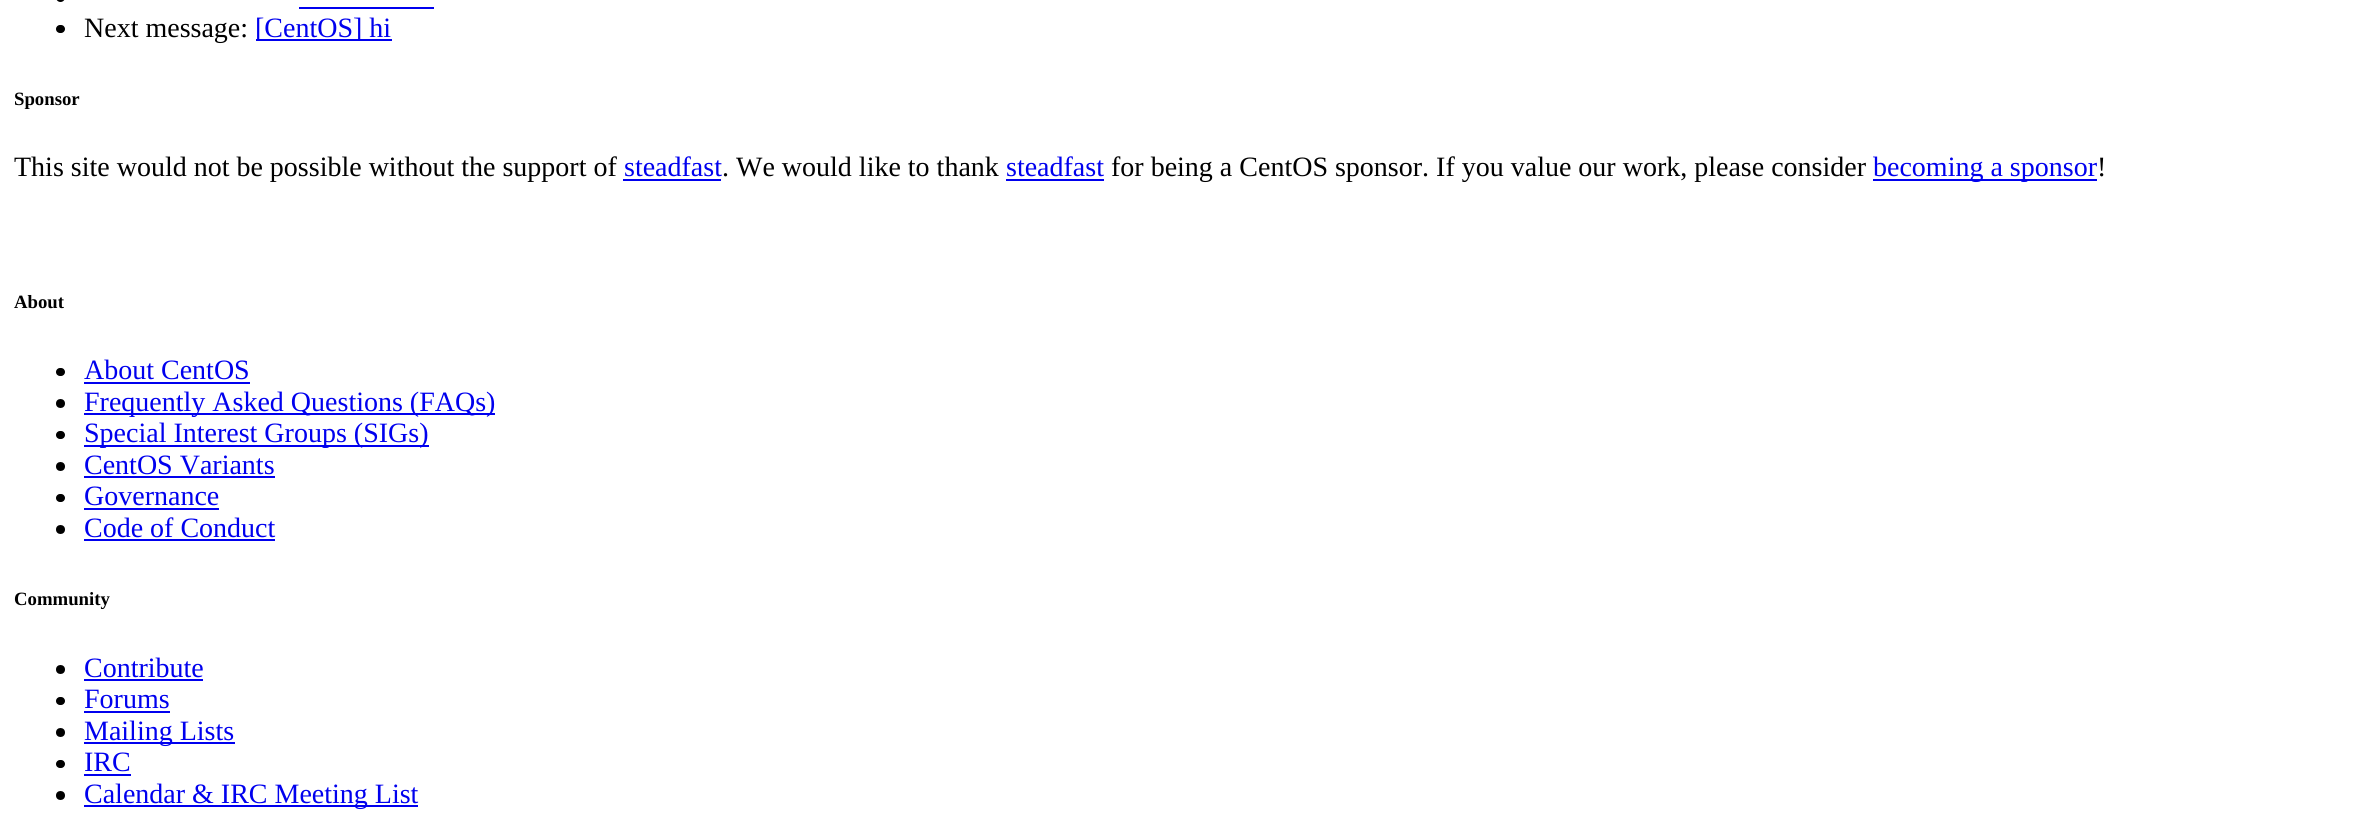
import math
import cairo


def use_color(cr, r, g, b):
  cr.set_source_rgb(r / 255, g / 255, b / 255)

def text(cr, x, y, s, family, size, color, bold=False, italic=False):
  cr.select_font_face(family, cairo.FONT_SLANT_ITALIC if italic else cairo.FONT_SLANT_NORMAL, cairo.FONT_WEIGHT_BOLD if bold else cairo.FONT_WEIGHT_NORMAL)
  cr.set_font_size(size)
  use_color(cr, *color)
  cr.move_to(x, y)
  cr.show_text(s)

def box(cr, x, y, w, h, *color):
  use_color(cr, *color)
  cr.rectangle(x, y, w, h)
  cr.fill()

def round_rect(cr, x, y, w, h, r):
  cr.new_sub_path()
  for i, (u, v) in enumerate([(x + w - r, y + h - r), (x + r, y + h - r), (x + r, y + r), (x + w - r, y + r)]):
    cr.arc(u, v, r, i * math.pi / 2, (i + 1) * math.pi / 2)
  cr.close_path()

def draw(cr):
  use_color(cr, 255, 255, 255)
  cr.paint()
  use_color(cr, 0, 0, 0)
  round_rect(cr, 56, -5, 9, 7, 4.5)
  cr.fill()
  box(cr, 299, 7, 135, 2, 0, 0, 238)
  use_color(cr, 0, 0, 0)
  round_rect(cr, 56, 25, 9, 8, 4)
  cr.fill()
  box(cr, 256, 39, 136, 2, 0, 0, 238)
  box(cr, 623, 179, 98, 2, 0, 0, 238)
  box(cr, 1006, 179, 98, 2, 0, 0, 238)
  box(cr, 1873, 179, 224, 2, 0, 0, 238)
  use_color(cr, 0, 0, 0)
  round_rect(cr, 56, 368, 9, 8, 4)
  cr.fill()
  box(cr, 84, 382, 166, 2, 0, 0, 238)
  use_color(cr, 0, 0, 0)
  cr.arc(60.5, 403.5, 4.5, 0, 2 * math.pi)
  cr.fill()
  box(cr, 84, 413, 411, 2, 0, 0, 238)
  use_color(cr, 0, 0, 0)
  round_rect(cr, 56, 431, 9, 8, 4)
  cr.fill()
  box(cr, 84, 445, 345, 2, 0, 0, 238)
  use_color(cr, 0, 0, 0)
  cr.arc(60.5, 466.5, 4.5, 0, 2 * math.pi)
  cr.fill()
  box(cr, 84, 476, 191, 2, 0, 0, 238)
  use_color(cr, 0, 0, 0)
  round_rect(cr, 56, 494, 9, 8, 4)
  cr.fill()
  box(cr, 84, 508, 135, 2, 0, 0, 238)
  use_color(cr, 0, 0, 0)
  cr.arc(60.5, 529.5, 4.5, 0, 2 * math.pi)
  cr.fill()
  box(cr, 84, 539, 191, 2, 0, 0, 238)
  use_color(cr, 0, 0, 0)
  cr.arc(60.5, 669.5, 4.5, 0, 2 * math.pi)
  cr.fill()
  box(cr, 84, 679, 119, 2, 0, 0, 238)
  use_color(cr, 0, 0, 0)
  round_rect(cr, 56, 697, 9, 8, 4)
  cr.fill()
  box(cr, 84, 711, 86, 2, 0, 0, 238)
  use_color(cr, 0, 0, 0)
  cr.arc(60.5, 732.5, 4.5, 0, 2 * math.pi)
  cr.fill()
  box(cr, 84, 742, 151, 2, 0, 0, 238)
  use_color(cr, 0, 0, 0)
  round_rect(cr, 56, 760, 9, 8, 4)
  cr.fill()
  box(cr, 84, 774, 47, 2, 0, 0, 238)
  use_color(cr, 0, 0, 0)
  cr.arc(60.5, 795.5, 4.5, 0, 2 * math.pi)
  cr.fill()
  box(cr, 84, 805, 334, 2, 0, 0, 238)
  text(cr, 84, 37, "Next message:", "Liberation Serif", 28, (0, 0, 0))
  text(cr, 255, 37, "[CentOS] hi", "Liberation Serif", 28, (0, 0, 238))
  text(cr, 14, 105, "Sponsor", "Liberation Serif", 18.75, (0, 0, 0), bold=True)
  text(cr, 14, 176, "This site would not be possible without the support of", "Liberation Serif", 28, (0, 0, 0))
  text(cr, 624, 176, "steadfast", "Liberation Serif", 28, (0, 0, 238))
  text(cr, 722, 176, ". We would like to thank", "Liberation Serif", 28, (0, 0, 0))
  text(cr, 1006, 176, "steadfast", "Liberation Serif", 28, (0, 0, 238))
  text(cr, 1111, 176, "for being a CentOS sponsor. If you value our work, please consider", "Liberation Serif", 28, (0, 0, 0))
  text(cr, 1873, 176, "becoming a sponsor", "Liberation Serif", 28, (0, 0, 238))
  text(cr, 2097, 176, "!", "Liberation Serif", 28, (0, 0, 0))
  text(cr, 14, 308, "About", "Liberation Serif", 18.75, (0, 0, 0), bold=True)
  text(cr, 84, 379, "About CentOS", "Liberation Serif", 28, (0, 0, 238))
  text(cr, 84, 411, "Frequently Asked Questions (FAQs)", "Liberation Serif", 28, (0, 0, 238))
  text(cr, 84, 442, "Special Interest Groups (SIGs)", "Liberation Serif", 28, (0, 0, 238))
  text(cr, 84, 474, "CentOS Variants", "Liberation Serif", 28, (0, 0, 238))
  text(cr, 84, 505, "Governance", "Liberation Serif", 28, (0, 0, 238))
  text(cr, 84, 537, "Code of Conduct", "Liberation Serif", 28, (0, 0, 238))
  text(cr, 14, 605, "Community", "Liberation Serif", 18.75, (0, 0, 0), bold=True)
  text(cr, 84, 677, "Contribute", "Liberation Serif", 28, (0, 0, 238))
  text(cr, 84, 708, "Forums", "Liberation Serif", 28, (0, 0, 238))
  text(cr, 84, 740, "Mailing Lists", "Liberation Serif", 28, (0, 0, 238))
  text(cr, 84, 771, "IRC", "Liberation Serif", 28, (0, 0, 238))
  text(cr, 84, 803, "Calendar & IRC Meeting List", "Liberation Serif", 28, (0, 0, 238))


surface = cairo.ImageSurface(cairo.FORMAT_RGB24, 2367, 823)
cr = cairo.Context(surface)
options = cairo.FontOptions()
options.set_hint_metrics(cairo.HINT_METRICS_OFF)
options.set_hint_style(cairo.HINT_STYLE_NONE)
cr.set_font_options(options)
cr.set_miter_limit(4)
draw(cr)
surface.write_to_png("out.png")
